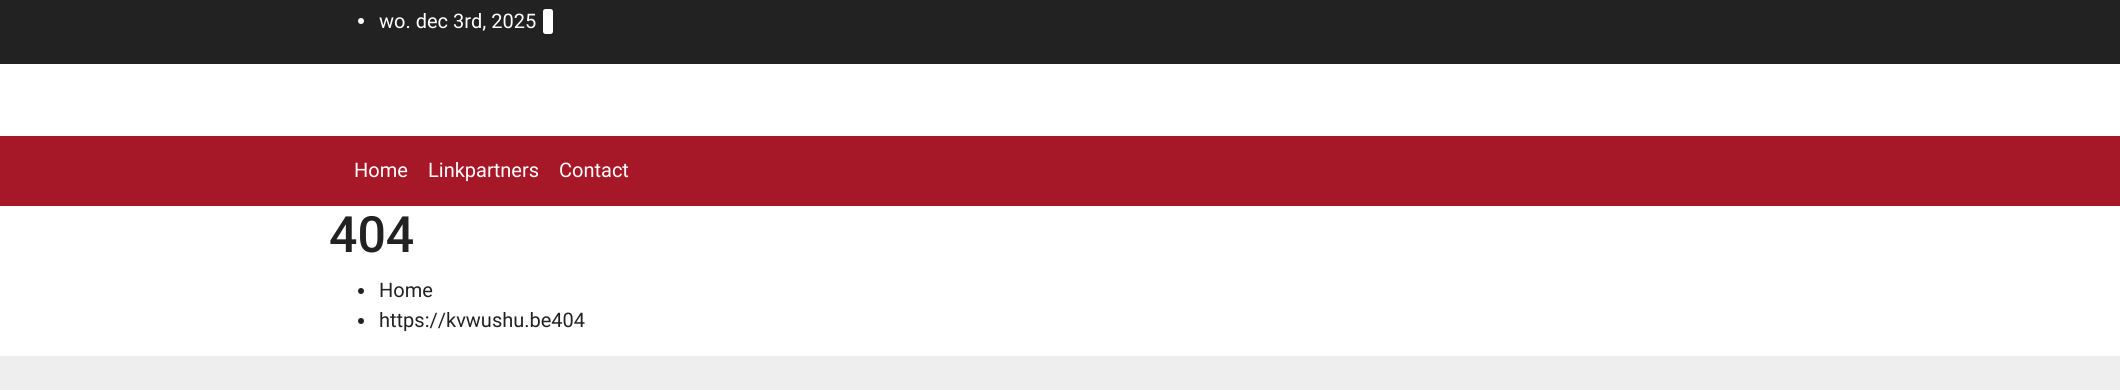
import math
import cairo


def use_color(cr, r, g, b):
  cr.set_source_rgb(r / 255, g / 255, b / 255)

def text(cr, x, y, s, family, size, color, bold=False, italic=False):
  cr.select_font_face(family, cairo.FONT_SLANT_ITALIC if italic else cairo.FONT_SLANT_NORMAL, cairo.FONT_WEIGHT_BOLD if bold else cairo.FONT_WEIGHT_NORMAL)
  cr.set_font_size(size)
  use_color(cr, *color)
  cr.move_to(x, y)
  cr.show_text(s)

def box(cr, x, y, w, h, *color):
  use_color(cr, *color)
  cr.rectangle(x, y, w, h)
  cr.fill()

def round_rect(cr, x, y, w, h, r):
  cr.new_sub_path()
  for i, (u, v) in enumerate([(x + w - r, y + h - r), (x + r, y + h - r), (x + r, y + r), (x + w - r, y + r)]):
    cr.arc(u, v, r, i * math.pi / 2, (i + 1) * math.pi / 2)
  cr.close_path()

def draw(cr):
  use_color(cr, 238, 238, 238)
  cr.paint()
  box(cr, 0, 0, 2120, 64, 34, 34, 34)
  use_color(cr, 255, 255, 255)
  cr.arc(361, 21, 3, 0, 2 * math.pi)
  cr.fill()
  round_rect(cr, 543, 9, 10, 25, 2.5)
  cr.fill()
  box(cr, 0, 64, 2120, 72, 255, 255, 255)
  box(cr, 0, 136, 2120, 70, 166, 23, 39)
  box(cr, 0, 206, 2120, 150, 255, 255, 255)
  use_color(cr, 34, 34, 34)
  cr.arc(361, 291, 3, 0, 2 * math.pi)
  cr.fill()
  cr.arc(361, 321, 3, 0, 2 * math.pi)
  cr.fill()
  text(cr, 379, 28, "wo. dec 3rd, 2025", "Roboto", 20, (255, 255, 255))
  text(cr, 354, 177, "Home", "Roboto", 20, (255, 255, 255))
  text(cr, 428, 177, "Linkpartners", "Roboto", 20, (255, 255, 255))
  text(cr, 559, 177, "Contact", "Roboto", 20, (255, 255, 255))
  text(cr, 329, 252, "404", "Roboto Medium", 50, (34, 34, 34))
  text(cr, 379, 297, "Home", "Roboto", 20, (34, 34, 34))
  text(cr, 379, 327, "https://kvwushu.be404", "Roboto", 20, (34, 34, 34))


surface = cairo.ImageSurface(cairo.FORMAT_RGB24, 2120, 390)
cr = cairo.Context(surface)
options = cairo.FontOptions()
options.set_hint_metrics(cairo.HINT_METRICS_OFF)
options.set_hint_style(cairo.HINT_STYLE_NONE)
cr.set_font_options(options)
cr.set_miter_limit(4)
draw(cr)
surface.write_to_png("out.png")
